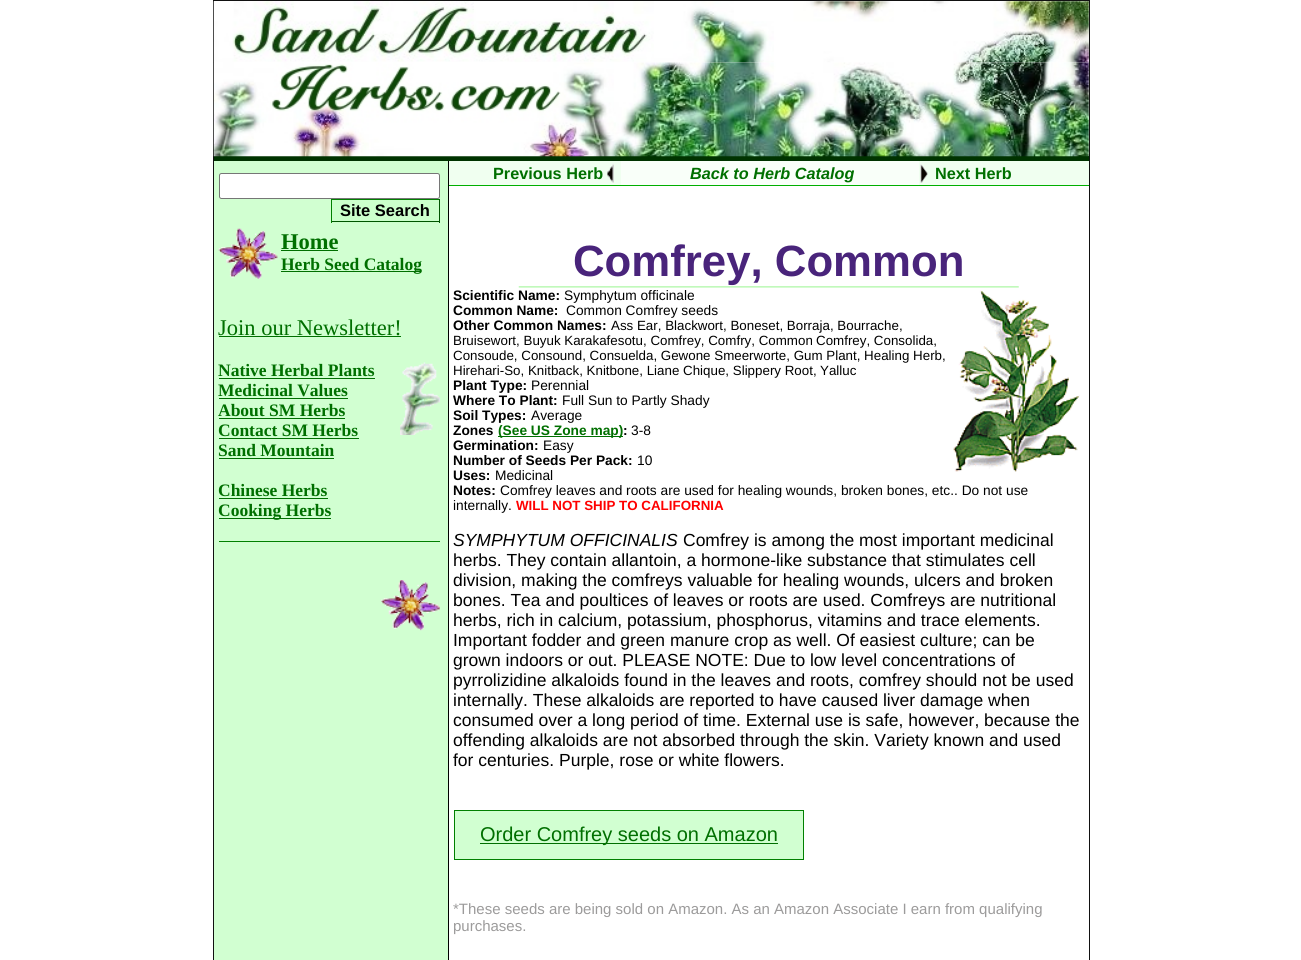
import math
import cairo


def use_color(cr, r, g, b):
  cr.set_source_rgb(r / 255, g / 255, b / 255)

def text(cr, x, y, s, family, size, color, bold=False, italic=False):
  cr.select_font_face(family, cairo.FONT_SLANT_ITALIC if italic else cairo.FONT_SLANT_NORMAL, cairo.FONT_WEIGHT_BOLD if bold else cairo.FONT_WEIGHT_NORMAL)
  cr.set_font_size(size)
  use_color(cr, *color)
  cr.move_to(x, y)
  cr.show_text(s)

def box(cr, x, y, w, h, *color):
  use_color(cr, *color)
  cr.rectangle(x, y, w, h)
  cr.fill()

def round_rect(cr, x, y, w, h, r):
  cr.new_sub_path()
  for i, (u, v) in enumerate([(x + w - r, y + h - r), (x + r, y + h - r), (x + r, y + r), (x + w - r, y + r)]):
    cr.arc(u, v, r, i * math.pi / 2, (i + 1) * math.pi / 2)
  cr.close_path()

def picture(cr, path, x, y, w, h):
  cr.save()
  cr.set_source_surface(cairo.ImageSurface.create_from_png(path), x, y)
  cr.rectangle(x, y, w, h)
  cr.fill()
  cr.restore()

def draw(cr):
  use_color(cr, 255, 255, 255)
  cr.paint()
  box(cr, 213, 0, 877, 1, 17, 17, 17)
  box(cr, 1089, 0, 1, 960, 17, 17, 17)
  box(cr, 213, 0, 1, 960, 17, 17, 17)
  picture(cr, "img_01.png", 213, 1, 876, 62)
  box(cr, 214, 156, 875, 5, 0, 51, 0)
  picture(cr, "img_02.png", 213, 62, 876, 95)
  box(cr, 214, 161, 234, 799, 209, 255, 209)
  box(cr, 448, 185, 641, 1, 0, 175, 0)
  box(cr, 448, 161, 1, 799, 0, 0, 0)
  use_color(cr, 255, 255, 255)
  round_rect(cr, 219.5, 173.5, 220, 25, 2)
  cr.fill_preserve()
  use_color(cr, 118, 118, 118)
  cr.set_line_width(1)
  cr.stroke()
  box(cr, 332, 200, 107, 23, 204, 255, 204)
  box(cr, 331, 199, 109, 1, 0, 128, 0)
  box(cr, 439, 199, 1, 24, 0, 85, 0)
  box(cr, 331, 221, 109, 1, 0, 85, 0)
  box(cr, 331, 199, 1, 24, 0, 128, 0)
  picture(cr, "img_03.png", 218, 228, 60, 51)
  box(cr, 281, 250, 57, 1, 0, 111, 0)
  box(cr, 281, 271, 140, 1, 0, 111, 0)
  box(cr, 219, 336, 182, 1, 0, 111, 0)
  box(cr, 219, 378, 156, 1, 0, 111, 0)
  picture(cr, "img_04.png", 400, 362, 40, 73)
  box(cr, 219, 398, 129, 1, 0, 111, 0)
  box(cr, 219, 418, 126, 1, 0, 111, 0)
  box(cr, 219, 438, 140, 1, 0, 111, 0)
  box(cr, 219, 458, 115, 1, 0, 111, 0)
  box(cr, 219, 498, 109, 1, 0, 111, 0)
  box(cr, 219, 518, 112, 1, 0, 111, 0)
  box(cr, 219, 541, 221, 1, 0, 128, 0)
  picture(cr, "img_05.png", 381, 580, 59, 51)
  box(cr, 449, 161, 640, 24, 240, 255, 240)
  picture(cr, "img_06.png", 607, 163, 7, 21)
  box(cr, 621, 161, 298, 24, 249, 255, 249)
  picture(cr, "img_07.png", 920, 164, 8, 19)
  picture(cr, "img_08.png", 518, 286, 501, 2)
  picture(cr, "img_09.png", 953, 290, 127, 182)
  box(cr, 498, 436, 125, 1, 0, 111, 0)
  use_color(cr, 209, 255, 209)
  cr.rectangle(454.5, 810.5, 349, 49)
  cr.fill_preserve()
  use_color(cr, 0, 128, 0)
  cr.stroke()
  box(cr, 480, 843, 298, 1, 0, 111, 0)
  text(cr, 340, 216, "Site Search", "Liberation Sans", 16.5, (0, 0, 0), bold=True)
  text(cr, 281, 249, "Home", "Liberation Serif", 22.5, (0, 111, 0), bold=True)
  text(cr, 281, 270, "Herb Seed Catalog", "Liberation Serif", 17.5, (0, 111, 0), bold=True)
  text(cr, 218, 335, "Join our Newsletter!", "Liberation Serif", 22.5, (0, 111, 0))
  text(cr, 218, 376, "Native Herbal Plants", "Liberation Serif", 17.5, (0, 111, 0), bold=True)
  text(cr, 218, 396, "Medicinal Values", "Liberation Serif", 17.5, (0, 111, 0), bold=True)
  text(cr, 218, 416, "About SM Herbs", "Liberation Serif", 17.5, (0, 111, 0), bold=True)
  text(cr, 218, 436, "Contact SM Herbs", "Liberation Serif", 17.5, (0, 111, 0), bold=True)
  text(cr, 218, 456, "Sand Mountain", "Liberation Serif", 17.5, (0, 111, 0), bold=True)
  text(cr, 218, 496, "Chinese Herbs", "Liberation Serif", 17.5, (0, 111, 0), bold=True)
  text(cr, 218, 516, "Cooking Herbs", "Liberation Serif", 17.5, (0, 111, 0), bold=True)
  text(cr, 493, 179, "Previous Herb", "Liberation Sans", 16.25, (0, 111, 0), bold=True)
  text(cr, 690, 179, "Back to Herb Catalog", "Liberation Sans", 16.25, (0, 111, 0), bold=True, italic=True)
  text(cr, 935, 179, "Next Herb", "Liberation Sans", 16.25, (0, 111, 0), bold=True)
  text(cr, 573, 276, "Comfrey, Common", "Liberation Sans", 43.75, (73, 36, 123), bold=True)
  text(cr, 453, 300, "Scientific Name:", "Liberation Sans", 13.75, (0, 0, 0), bold=True)
  text(cr, 564, 300, "Symphytum officinale", "Liberation Sans", 13.75, (0, 0, 0))
  text(cr, 453, 315, "Common Name:", "Liberation Sans", 13.75, (0, 0, 0), bold=True)
  text(cr, 566, 315, "Common Comfrey seeds", "Liberation Sans", 13.75, (0, 0, 0))
  text(cr, 453, 330, "Other Common Names:", "Liberation Sans", 13.75, (0, 0, 0), bold=True)
  text(cr, 611, 330, "Ass Ear, Blackwort, Boneset, Borraja, Bourrache,", "Liberation Sans", 13.35, (0, 0, 0))
  text(cr, 453, 345, "Bruisewort, Buyuk Karakafesotu, Comfrey, Comfry, Common", "Liberation Sans", 13.35, (0, 0, 0))
  text(cr, 816, 345, "Comfrey, Consolida,", "Liberation Sans", 13.35, (0, 0, 0))
  text(cr, 453, 360, "Consoude, Consound, Consuelda, Gewone Smeerworte, Gum Plant, Healing Herb,", "Liberation Sans", 13.35, (0, 0, 0))
  text(cr, 453, 375, "Hirehari-So, Knitback, Knitbone, Liane Chique, Slippery Root,", "Liberation Sans", 13.35, (0, 0, 0))
  text(cr, 820, 375, "Yalluc", "Liberation Sans", 13.35, (0, 0, 0))
  text(cr, 453, 390, "Plant Type:", "Liberation Sans", 13.75, (0, 0, 0), bold=True)
  text(cr, 531, 390, "Perennial", "Liberation Sans", 13.75, (0, 0, 0))
  text(cr, 453, 405, "Where To Plant:", "Liberation Sans", 13.75, (0, 0, 0), bold=True)
  text(cr, 562, 405, "Full Sun to Partly Shady", "Liberation Sans", 13.75, (0, 0, 0))
  text(cr, 453, 420, "Soil Types:", "Liberation Sans", 13.75, (0, 0, 0), bold=True)
  text(cr, 531, 420, "Average", "Liberation Sans", 13.75, (0, 0, 0))
  text(cr, 453, 435, "Zones", "Liberation Sans", 13.75, (0, 0, 0), bold=True)
  text(cr, 498, 435, "(See US Zone map)", "Liberation Sans", 13.75, (0, 111, 0), bold=True)
  text(cr, 623, 435, ":", "Liberation Sans", 13.75, (0, 0, 0), bold=True)
  text(cr, 631, 435, "3-8", "Liberation Sans", 13.75, (0, 0, 0))
  text(cr, 453, 450, "Germination:", "Liberation Sans", 13.75, (0, 0, 0), bold=True)
  text(cr, 543, 450, "Easy", "Liberation Sans", 13.75, (0, 0, 0))
  text(cr, 453, 465, "Number of Seeds Per Pack:", "Liberation Sans", 13.75, (0, 0, 0), bold=True)
  text(cr, 637, 465, "10", "Liberation Sans", 13.75, (0, 0, 0))
  text(cr, 453, 480, "Uses:", "Liberation Sans", 13.75, (0, 0, 0), bold=True)
  text(cr, 495, 480, "Medicinal", "Liberation Sans", 13.75, (0, 0, 0))
  text(cr, 453, 495, "Notes:", "Liberation Sans", 13.75, (0, 0, 0), bold=True)
  text(cr, 500, 495, "Comfrey leaves and roots are used for healing wounds, broken bones, etc.. Do not use", "Liberation Sans", 13.75, (0, 0, 0))
  text(cr, 516, 510, "WILL NOT SHIP TO CALIFORNIA", "Liberation Sans", 13.35, (255, 0, 0), bold=True)
  text(cr, 453, 546, "SYMPHYTUM OFFICINALIS", "Liberation Sans", 17.5, (0, 0, 0), italic=True)
  text(cr, 683, 546, "Comfrey is among the most important medicinal", "Liberation Sans", 17.5, (0, 0, 0))
  text(cr, 453, 566, "herbs. They contain allantoin, a hormone-like substance that stimulates cell", "Liberation Sans", 17.5, (0, 0, 0))
  text(cr, 453, 586, "division, making the comfreys valuable for healing wounds, ulcers and broken", "Liberation Sans", 17.5, (0, 0, 0))
  text(cr, 453, 606, "bones. Tea and poultices of leaves or roots are used. Comfreys are nutritional", "Liberation Sans", 17.5, (0, 0, 0))
  text(cr, 453, 626, "herbs, rich in calcium, potassium, phosphorus, vitamins and trace elements.", "Liberation Sans", 17.5, (0, 0, 0))
  text(cr, 453, 646, "Important fodder and green manure crop as well. Of easiest culture; can be", "Liberation Sans", 17.5, (0, 0, 0))
  text(cr, 453, 666, "grown indoors or out. PLEASE NOTE: Due to low level concentrations of", "Liberation Sans", 17.5, (0, 0, 0))
  text(cr, 453, 686, "pyrrolizidine alkaloids found in the leaves and roots, comfrey should not be used", "Liberation Sans", 17.5, (0, 0, 0))
  text(cr, 453, 706, "internally. These alkaloids are reported to have caused liver damage when", "Liberation Sans", 17.5, (0, 0, 0))
  text(cr, 453, 726, "consumed over a long period of time. External use is safe, however, because the", "Liberation Sans", 17.5, (0, 0, 0))
  text(cr, 453, 746, "offending alkaloids are not absorbed through the skin. Variety known and used", "Liberation Sans", 17.5, (0, 0, 0))
  text(cr, 453, 766, "for centuries. Purple, rose or white flowers.", "Liberation Sans", 17.5, (0, 0, 0))
  text(cr, 480, 841, "Order Comfrey seeds on Amazon", "Liberation Sans", 20, (0, 111, 0))
  text(cr, 453, 914, "*These seeds are being sold on Amazon. As an Amazon Associate I earn from qualifying", "Liberation Sans", 15, (156, 155, 155))
  text(cr, 453, 931, "purchases.", "Liberation Sans", 15, (156, 155, 155))
  text(cr, 453, 510, "internally.", "Liberation Sans", 13.75, (0, 0, 0))


surface = cairo.ImageSurface(cairo.FORMAT_RGB24, 1301, 960)
cr = cairo.Context(surface)
options = cairo.FontOptions()
options.set_hint_metrics(cairo.HINT_METRICS_OFF)
options.set_hint_style(cairo.HINT_STYLE_NONE)
cr.set_font_options(options)
cr.set_miter_limit(4)
draw(cr)
surface.write_to_png("out.png")
